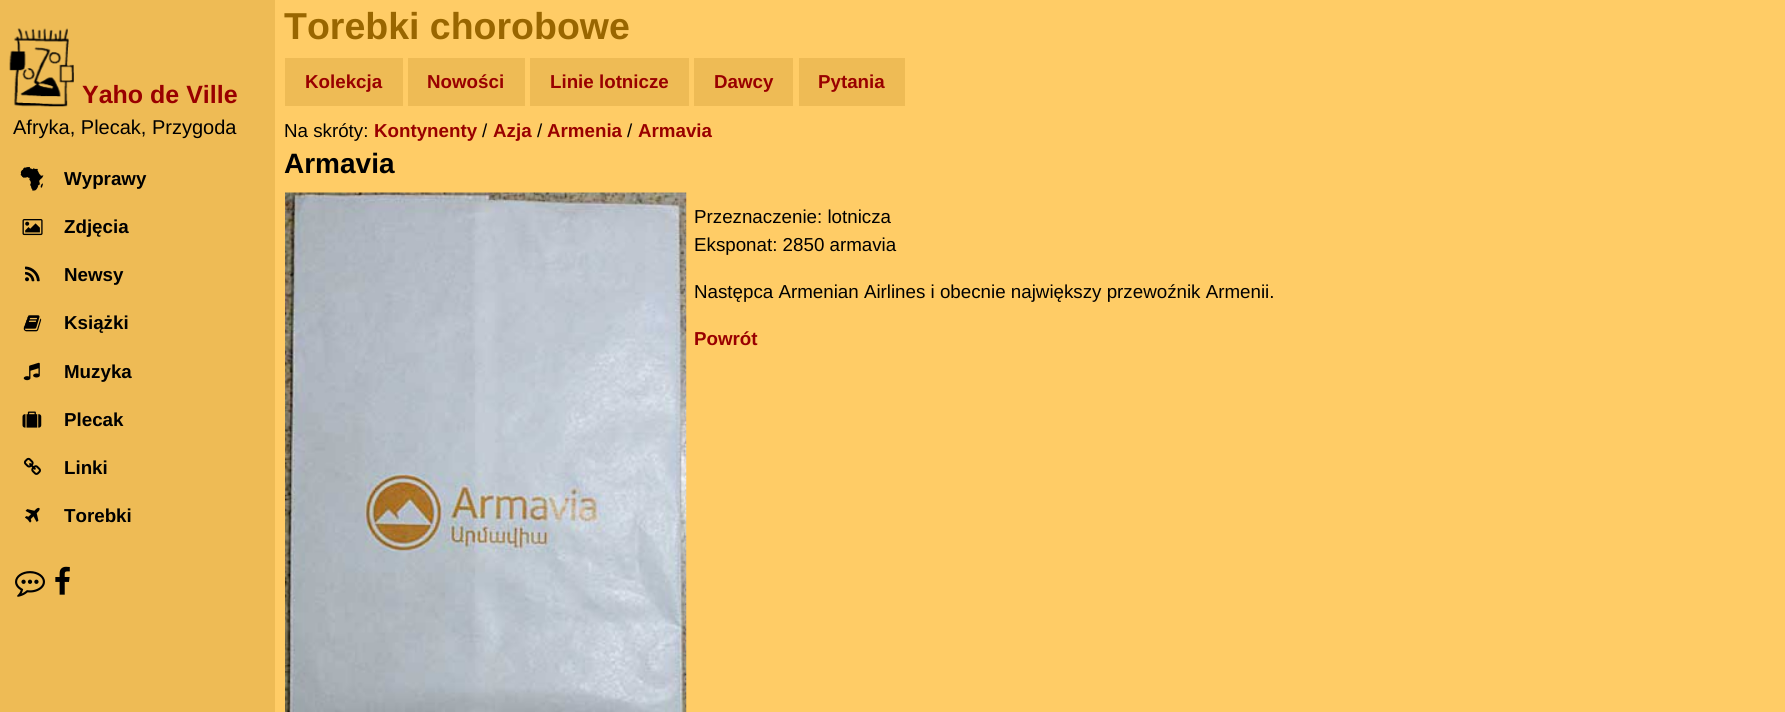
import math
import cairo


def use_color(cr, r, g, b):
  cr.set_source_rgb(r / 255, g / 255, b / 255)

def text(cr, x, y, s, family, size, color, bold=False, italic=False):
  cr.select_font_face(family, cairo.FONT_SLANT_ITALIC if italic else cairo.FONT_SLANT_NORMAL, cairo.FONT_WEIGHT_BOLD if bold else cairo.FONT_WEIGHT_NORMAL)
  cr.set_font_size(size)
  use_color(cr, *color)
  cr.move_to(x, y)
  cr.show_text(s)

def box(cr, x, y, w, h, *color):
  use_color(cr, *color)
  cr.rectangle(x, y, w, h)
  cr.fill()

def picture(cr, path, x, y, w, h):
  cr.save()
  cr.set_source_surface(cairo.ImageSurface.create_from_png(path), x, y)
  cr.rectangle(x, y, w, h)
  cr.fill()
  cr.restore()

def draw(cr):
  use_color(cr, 255, 204, 102)
  cr.paint()
  box(cr, 0, 0, 275, 712, 238, 187, 85)
  picture(cr, "img_01.png", 9, 28, 65, 79)
  picture(cr, "img_02.png", 20, 166, 24, 25)
  picture(cr, "img_03.png", 22, 219, 21, 17)
  picture(cr, "img_04.png", 25, 266, 15, 16)
  picture(cr, "img_05.png", 23, 315, 19, 17)
  picture(cr, "img_06.png", 23, 362, 17, 19)
  picture(cr, "img_07.png", 22, 411, 20, 17)
  picture(cr, "img_08.png", 23, 457, 18, 18)
  picture(cr, "img_09.png", 25, 507, 15, 16)
  picture(cr, "img_10.png", 15, 571, 30, 26)
  picture(cr, "img_11.png", 55, 566, 15, 29)
  box(cr, 285, 58, 118, 48, 238, 187, 85)
  box(cr, 408, 58, 117, 48, 238, 187, 85)
  box(cr, 530, 58, 159, 48, 238, 187, 85)
  box(cr, 694, 58, 99, 48, 238, 187, 85)
  box(cr, 799, 58, 106, 48, 238, 187, 85)
  picture(cr, "img_12.png", 285, 192, 402, 520)
  text(cr, 82, 103, "Yaho de Ville", "Liberation Sans", 25, (153, 0, 0), bold=True)
  text(cr, 13, 134, "Afryka, Plecak, Przygoda", "Liberation Sans", 20, (0, 0, 0))
  text(cr, 64, 185, "Wyprawy", "Liberation Sans", 18.75, (0, 0, 0), bold=True)
  text(cr, 64, 233, "Zdjęcia", "Liberation Sans", 18.75, (0, 0, 0), bold=True)
  text(cr, 64, 281, "Newsy", "Liberation Sans", 18.75, (0, 0, 0), bold=True)
  text(cr, 64, 329, "Książki", "Liberation Sans", 18.75, (0, 0, 0), bold=True)
  text(cr, 64, 378, "Muzyka", "Liberation Sans", 18.75, (0, 0, 0), bold=True)
  text(cr, 64, 426, "Plecak", "Liberation Sans", 18.75, (0, 0, 0), bold=True)
  text(cr, 64, 474, "Linki", "Liberation Sans", 18.75, (0, 0, 0), bold=True)
  text(cr, 64, 522, "Torebki", "Liberation Sans", 18.75, (0, 0, 0), bold=True)
  text(cr, 284, 39, "Torebki chorobowe", "Liberation Sans", 37.5, (153, 102, 0), bold=True)
  text(cr, 305, 88, "Kolekcja", "Liberation Sans", 18.75, (153, 0, 0), bold=True)
  text(cr, 427, 88, "Nowości", "Liberation Sans", 18.75, (153, 0, 0), bold=True)
  text(cr, 550, 88, "Linie lotnicze", "Liberation Sans", 18.75, (153, 0, 0), bold=True)
  text(cr, 714, 88, "Dawcy", "Liberation Sans", 18.75, (153, 0, 0), bold=True)
  text(cr, 818, 88, "Pytania", "Liberation Sans", 18.75, (153, 0, 0), bold=True)
  text(cr, 284, 137, "Na skróty:", "Liberation Sans", 18.75, (0, 0, 0))
  text(cr, 374, 137, "Kontynenty", "Liberation Sans", 18.75, (153, 0, 0), bold=True)
  text(cr, 482, 137, "/", "Liberation Sans", 18.75, (0, 0, 0))
  text(cr, 493, 137, "Azja", "Liberation Sans", 18.75, (153, 0, 0), bold=True)
  text(cr, 537, 137, "/", "Liberation Sans", 18.75, (0, 0, 0))
  text(cr, 547, 137, "Armenia", "Liberation Sans", 18.75, (153, 0, 0), bold=True)
  text(cr, 627, 137, "/", "Liberation Sans", 18.75, (0, 0, 0))
  text(cr, 638, 137, "Armavia", "Liberation Sans", 18.75, (153, 0, 0), bold=True)
  text(cr, 284, 173, "Armavia", "Liberation Sans", 28, (0, 0, 0), bold=True)
  text(cr, 694, 223, "Przeznaczenie: lotnicza", "Liberation Sans", 18.75, (0, 0, 0))
  text(cr, 694, 251, "Eksponat: 2850 armavia", "Liberation Sans", 18.75, (0, 0, 0))
  text(cr, 694, 298, "Następca Armenian Airlines i obecnie największy przewoźnik Armenii.", "Liberation Sans", 18.75, (0, 0, 0))
  text(cr, 694, 345, "Powrót", "Liberation Sans", 18.75, (153, 0, 0), bold=True)


surface = cairo.ImageSurface(cairo.FORMAT_RGB24, 1785, 712)
cr = cairo.Context(surface)
options = cairo.FontOptions()
options.set_hint_metrics(cairo.HINT_METRICS_OFF)
options.set_hint_style(cairo.HINT_STYLE_NONE)
cr.set_font_options(options)
cr.set_miter_limit(4)
draw(cr)
surface.write_to_png("out.png")
